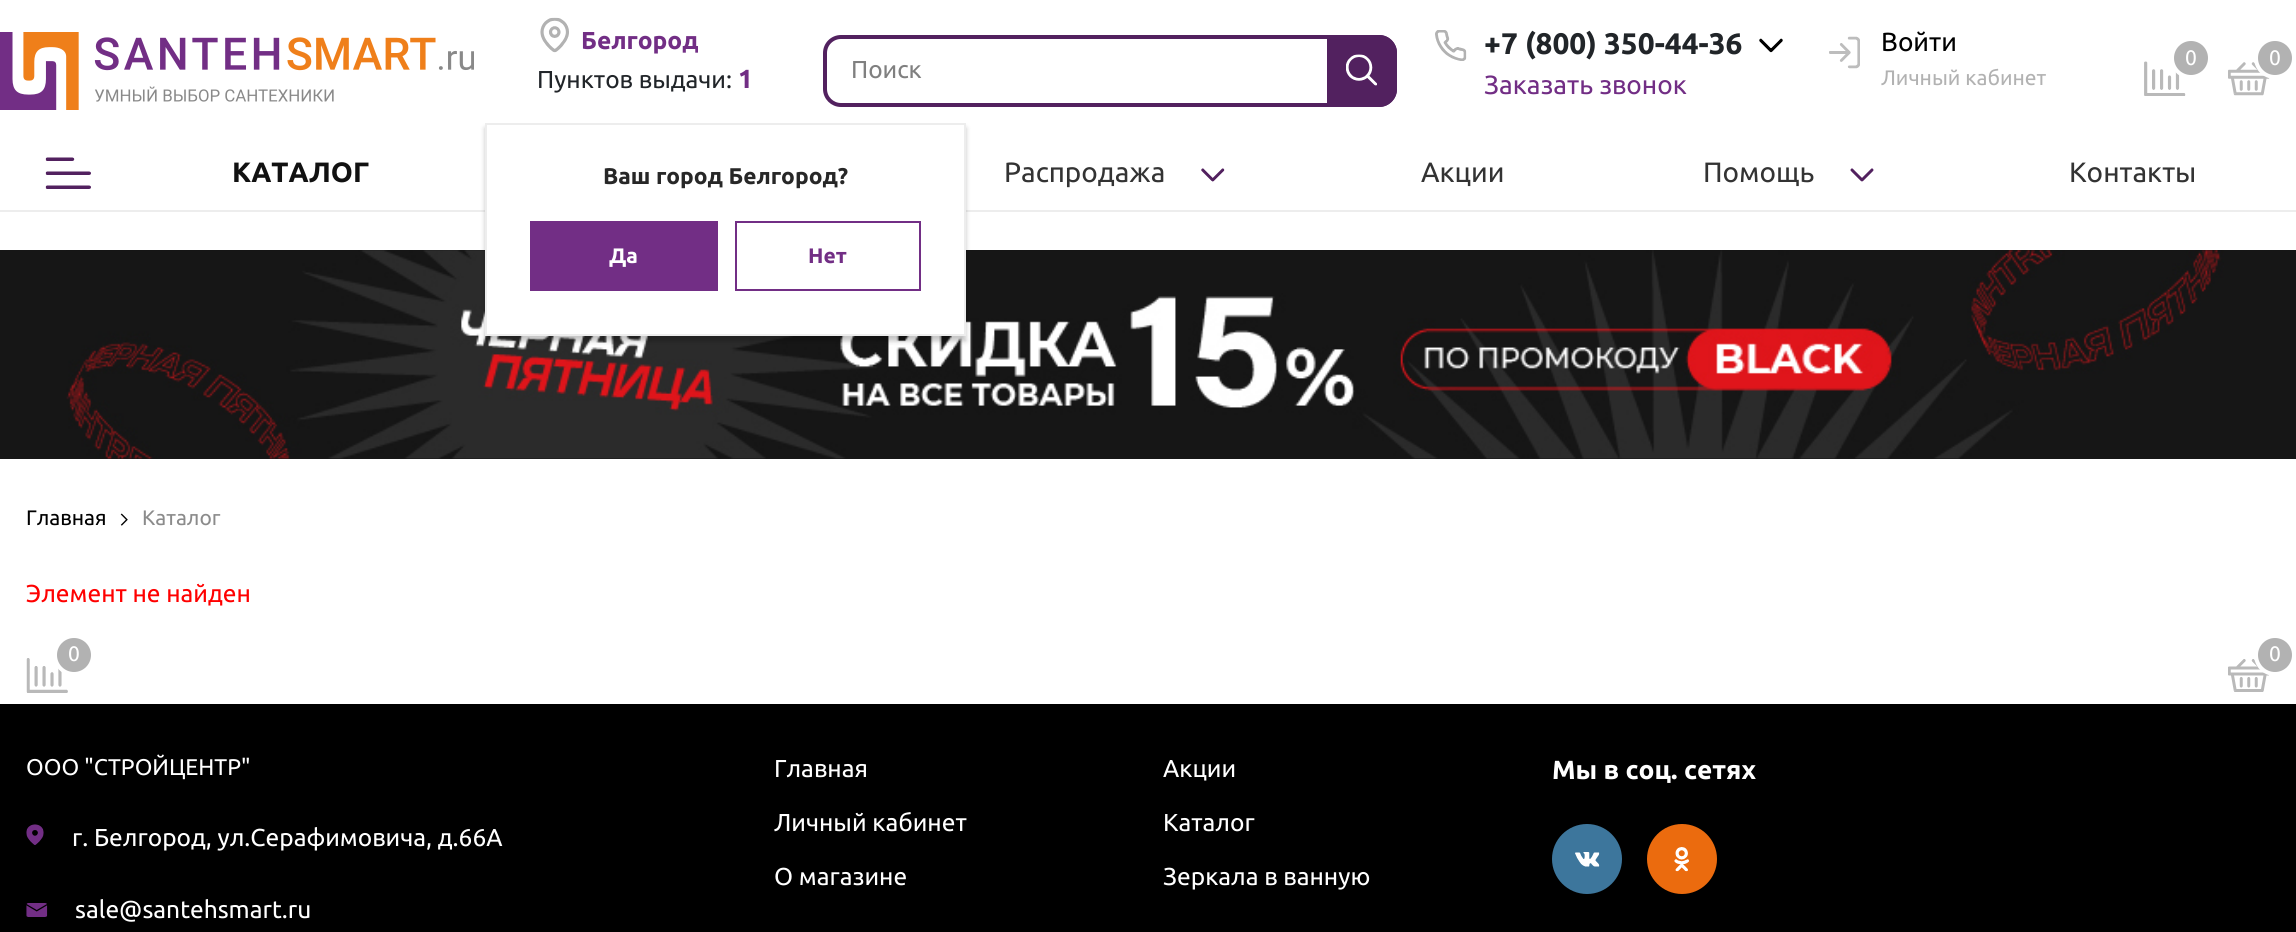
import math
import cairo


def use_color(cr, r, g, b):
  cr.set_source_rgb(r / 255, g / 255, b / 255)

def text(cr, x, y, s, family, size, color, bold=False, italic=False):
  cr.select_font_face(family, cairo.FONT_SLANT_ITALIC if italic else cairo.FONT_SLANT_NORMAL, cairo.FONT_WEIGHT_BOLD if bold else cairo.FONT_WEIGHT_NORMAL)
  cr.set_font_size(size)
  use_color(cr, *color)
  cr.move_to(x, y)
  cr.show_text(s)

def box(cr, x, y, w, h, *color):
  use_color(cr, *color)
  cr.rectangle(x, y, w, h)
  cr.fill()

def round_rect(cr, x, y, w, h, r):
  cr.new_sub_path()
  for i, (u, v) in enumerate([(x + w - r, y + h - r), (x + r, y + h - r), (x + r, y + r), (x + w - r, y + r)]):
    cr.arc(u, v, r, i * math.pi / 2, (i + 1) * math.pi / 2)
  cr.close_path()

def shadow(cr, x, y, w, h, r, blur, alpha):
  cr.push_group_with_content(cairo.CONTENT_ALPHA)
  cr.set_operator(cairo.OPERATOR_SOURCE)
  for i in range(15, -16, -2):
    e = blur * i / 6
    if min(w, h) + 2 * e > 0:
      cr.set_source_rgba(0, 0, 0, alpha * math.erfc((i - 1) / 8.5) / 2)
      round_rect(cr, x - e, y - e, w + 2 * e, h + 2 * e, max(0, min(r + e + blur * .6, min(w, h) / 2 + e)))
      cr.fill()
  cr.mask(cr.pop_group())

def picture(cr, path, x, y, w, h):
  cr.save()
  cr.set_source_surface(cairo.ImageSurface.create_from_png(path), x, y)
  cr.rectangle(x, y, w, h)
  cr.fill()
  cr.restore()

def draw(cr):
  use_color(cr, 255, 255, 255)
  cr.paint()
  picture(cr, "img_01.png", 0, 32, 474, 78)
  picture(cr, "img_02.png", 540, 17, 29, 36)
  box(cr, 0, 210, 2296, 2, 237, 237, 237)
  box(cr, 0, 250, 2296, 209, 22, 22, 22)
  picture(cr, "img_12.png", 66, 250, 2158, 209)
  use_color(cr, 0, 0, 0)
  shadow(cr, 485, 128, 481, 213, 0, 2.5, 0.23)
  use_color(cr, 255, 255, 255)
  cr.rectangle(486, 124, 479, 211)
  cr.fill_preserve()
  use_color(cr, 237, 237, 237)
  cr.stroke()
  box(cr, 530, 221, 188, 70, 114, 46, 133)
  cr.rectangle(736, 222, 184, 68)
  cr.stroke()
  picture(cr, "img_03.png", 1435, 30, 32, 31)
  picture(cr, "img_04.png", 1759, 38, 24, 15)
  picture(cr, "img_05.png", 1829, 36, 31, 33)
  picture(cr, "img_06.png", 2144, 61, 42, 35)
  use_color(cr, 178, 178, 178)
  cr.arc(2191, 58, 19, 0, 2 * math.pi)
  cr.fill_preserve()
  use_color(cr, 255, 255, 255)
  cr.set_line_width(4)
  cr.stroke()
  picture(cr, "img_07.png", 2228, 62, 42, 34)
  use_color(cr, 178, 178, 178)
  cr.arc(2275, 58, 19, 0, 2 * math.pi)
  cr.fill_preserve()
  use_color(cr, 255, 255, 255)
  cr.stroke()
  round_rect(cr, 825, 37, 570, 68, 16)
  use_color(cr, 82, 33, 95)
  cr.stroke()
  cr.new_path()
  cr.move_to(1327, 35)
  cr.line_to(1379, 35)
  cr.curve_to(1389, 35, 1397, 43, 1397, 53)
  cr.line_to(1397, 89)
  cr.curve_to(1397, 99, 1389, 107, 1379, 107)
  cr.line_to(1327, 107)
  cr.close_path()
  cr.fill()
  picture(cr, "img_08.png", 1346, 54, 31, 32)
  picture(cr, "img_09.png", 45, 157, 46, 32)
  picture(cr, "img_10.png", 1201, 168, 24, 14)
  picture(cr, "img_11.png", 1850, 168, 24, 14)
  picture(cr, "img_13.png", 120, 513, 8, 13)
  picture(cr, "img_14.png", 26, 658, 42, 35)
  use_color(cr, 178, 178, 178)
  cr.arc(74, 655, 19, 0, 2 * math.pi)
  cr.fill_preserve()
  use_color(cr, 255, 255, 255)
  cr.stroke()
  picture(cr, "img_15.png", 2228, 659, 41, 33)
  use_color(cr, 178, 178, 178)
  cr.arc(2275, 655, 19, 0, 2 * math.pi)
  cr.fill_preserve()
  use_color(cr, 255, 255, 255)
  cr.stroke()
  box(cr, 0, 704, 2296, 228, 0, 0, 0)
  picture(cr, "img_16.png", 26, 824, 18, 21)
  picture(cr, "img_17.png", 26, 903, 22, 14)
  use_color(cr, 61, 118, 156)
  cr.arc(1587, 859, 35, 0, 2 * math.pi)
  cr.fill()
  picture(cr, "img_18.png", 1575, 852, 25, 15)
  use_color(cr, 235, 107, 14)
  cr.arc(1682, 859, 35, 0, 2 * math.pi)
  cr.fill()
  picture(cr, "img_19.png", 1674, 847, 15, 25)
  cr.save()
  cr.rectangle(581, 23, 117, 37)
  cr.clip()
  text(cr, 581, 49, "Белгород", "Ubuntu", 24.5, (114, 46, 133), bold=True)
  cr.restore()
  text(cr, 537, 88, "Пунктов выдачи:", "Ubuntu", 24.5, (33, 37, 41))
  text(cr, 738, 88, "1", "Ubuntu", 26.25, (114, 46, 133), bold=True)
  text(cr, 603, 184, "Ваш город Белгород?", "Ubuntu", 22.75, (39, 39, 39), bold=True)
  text(cr, 609, 263, "Да", "Ubuntu", 21, (255, 255, 255), bold=True)
  text(cr, 808, 263, "Нет", "Ubuntu", 21, (114, 46, 133), bold=True)
  text(cr, 1484, 54, "+7 (800) 350-44-36", "Ubuntu", 29.75, (33, 37, 41), bold=True)
  text(cr, 1484, 94, "Заказать звонок", "Ubuntu", 26.25, (114, 46, 133))
  text(cr, 1881, 51, "Войти", "Ubuntu", 26.25, (0, 0, 0))
  text(cr, 1881, 85, "Личный кабинет", "Ubuntu", 21, (178, 178, 178))
  text(cr, 2185, 65, "0", "Ubuntu", 21, (255, 255, 255))
  text(cr, 2269, 65, "0", "Ubuntu", 21, (255, 255, 255))
  text(cr, 851, 78, "Поиск", "Ubuntu", 24.5, (128, 128, 128))
  text(cr, 232, 182, "КАТАЛОГ", "Ubuntu", 28, (17, 17, 17), bold=True)
  text(cr, 1004, 182, "Распродажа", "Ubuntu", 28, (51, 51, 51))
  text(cr, 1421, 182, "Акции", "Ubuntu", 28, (51, 51, 51))
  text(cr, 1703, 182, "Помощь", "Ubuntu", 28, (51, 51, 51))
  text(cr, 2069, 182, "Контакты", "Ubuntu", 28, (51, 51, 51))
  text(cr, 26, 525, "Главная", "Ubuntu", 21, (0, 0, 0))
  text(cr, 142, 525, "Каталог", "Ubuntu", 21, (139, 139, 139))
  text(cr, 26, 602, "Элемент не найден", "Ubuntu", 24.5, (255, 0, 0))
  text(cr, 68, 661, "0", "Ubuntu", 21, (255, 255, 255))
  text(cr, 2269, 661, "0", "Ubuntu", 21, (255, 255, 255))
  text(cr, 26, 775, "ООО \"СТРОЙЦЕНТР\"", "Ubuntu", 22.75, (255, 255, 255))
  text(cr, 72, 846, "г. Белгород, ул.Серафимовича, д.66А", "Ubuntu", 24.5, (255, 255, 255))
  text(cr, 75, 918, "sale@santehsmart.ru", "Ubuntu", 24.5, (255, 255, 255))
  text(cr, 774, 777, "Главная", "Ubuntu", 24.5, (255, 255, 255))
  text(cr, 774, 831, "Личный кабинет", "Ubuntu", 24.5, (255, 255, 255))
  text(cr, 774, 885, "О магазине", "Ubuntu", 24.5, (255, 255, 255))
  text(cr, 1163, 777, "Акции", "Ubuntu", 24.5, (255, 255, 255))
  text(cr, 1163, 831, "Каталог", "Ubuntu", 24.5, (255, 255, 255))
  text(cr, 1163, 885, "Зеркала в ванную", "Ubuntu", 24.5, (255, 255, 255))
  text(cr, 1552, 779, "Мы в соц. сетях", "Ubuntu", 26.25, (255, 255, 255), bold=True)


surface = cairo.ImageSurface(cairo.FORMAT_RGB24, 2296, 932)
cr = cairo.Context(surface)
options = cairo.FontOptions()
options.set_hint_metrics(cairo.HINT_METRICS_OFF)
options.set_hint_style(cairo.HINT_STYLE_NONE)
cr.set_font_options(options)
cr.set_miter_limit(4)
draw(cr)
surface.write_to_png("out.png")
